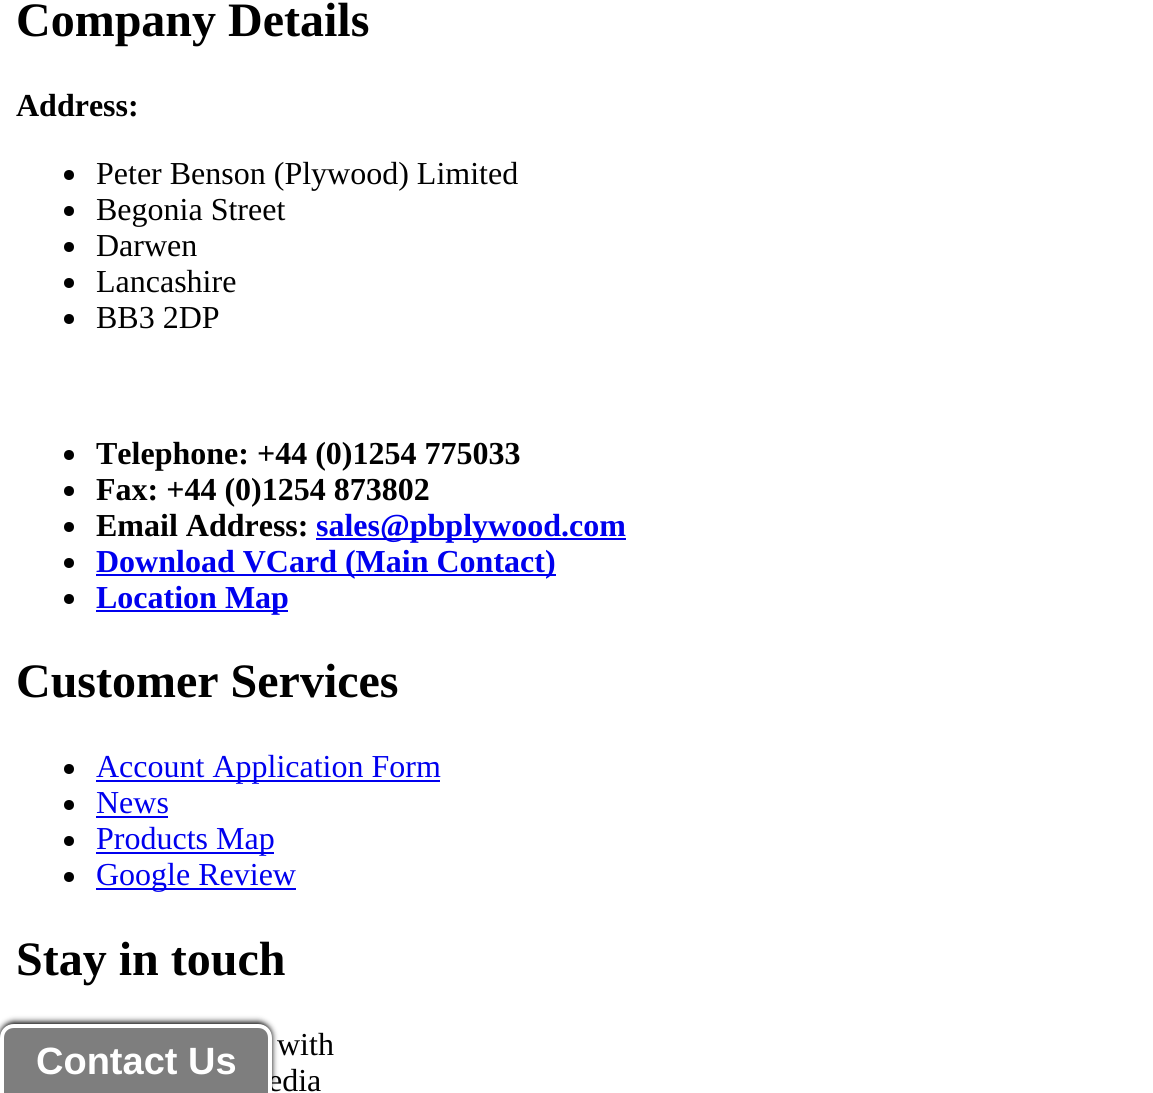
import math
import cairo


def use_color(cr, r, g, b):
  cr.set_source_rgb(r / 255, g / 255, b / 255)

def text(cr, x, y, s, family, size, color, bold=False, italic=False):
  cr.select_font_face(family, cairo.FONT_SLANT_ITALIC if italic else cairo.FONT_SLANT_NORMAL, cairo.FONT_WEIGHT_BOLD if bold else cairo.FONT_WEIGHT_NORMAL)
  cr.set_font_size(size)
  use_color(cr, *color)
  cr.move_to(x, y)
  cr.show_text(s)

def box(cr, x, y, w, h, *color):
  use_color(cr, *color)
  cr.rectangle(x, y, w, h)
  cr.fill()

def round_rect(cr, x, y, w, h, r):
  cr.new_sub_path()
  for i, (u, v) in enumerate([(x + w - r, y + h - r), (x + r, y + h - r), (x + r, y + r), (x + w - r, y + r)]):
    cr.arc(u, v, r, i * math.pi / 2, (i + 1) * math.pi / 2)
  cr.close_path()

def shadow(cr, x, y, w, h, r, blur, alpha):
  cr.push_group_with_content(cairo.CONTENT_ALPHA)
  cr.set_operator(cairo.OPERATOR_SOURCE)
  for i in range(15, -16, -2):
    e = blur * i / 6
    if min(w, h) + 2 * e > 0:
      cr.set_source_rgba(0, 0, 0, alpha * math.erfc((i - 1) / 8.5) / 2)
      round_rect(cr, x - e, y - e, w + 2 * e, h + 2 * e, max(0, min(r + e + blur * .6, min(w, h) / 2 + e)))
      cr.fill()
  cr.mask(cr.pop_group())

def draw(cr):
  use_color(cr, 255, 255, 255)
  cr.paint()
  use_color(cr, 0, 0, 0)
  cr.arc(69, 175, 5, 0, 2 * math.pi)
  cr.fill()
  cr.arc(69, 211, 5, 0, 2 * math.pi)
  cr.fill()
  cr.arc(69, 247, 5, 0, 2 * math.pi)
  cr.fill()
  cr.arc(69, 283, 5, 0, 2 * math.pi)
  cr.fill()
  cr.arc(69, 319, 5, 0, 2 * math.pi)
  cr.fill()
  cr.arc(69, 455, 5, 0, 2 * math.pi)
  cr.fill()
  cr.arc(69, 491, 5, 0, 2 * math.pi)
  cr.fill()
  cr.arc(69, 527, 5, 0, 2 * math.pi)
  cr.fill()
  box(cr, 316, 538, 310, 2, 0, 0, 238)
  use_color(cr, 0, 0, 0)
  cr.arc(69, 563, 5, 0, 2 * math.pi)
  cr.fill()
  box(cr, 96, 574, 460, 2, 0, 0, 238)
  use_color(cr, 0, 0, 0)
  cr.arc(69, 599, 5, 0, 2 * math.pi)
  cr.fill()
  box(cr, 96, 610, 192, 2, 0, 0, 238)
  use_color(cr, 0, 0, 0)
  cr.arc(69, 769, 5, 0, 2 * math.pi)
  cr.fill()
  box(cr, 96, 780, 344, 2, 0, 0, 238)
  use_color(cr, 0, 0, 0)
  cr.arc(69, 805, 5, 0, 2 * math.pi)
  cr.fill()
  box(cr, 96, 816, 72, 2, 0, 0, 238)
  use_color(cr, 0, 0, 0)
  cr.arc(69, 841, 5, 0, 2 * math.pi)
  cr.fill()
  box(cr, 96, 852, 178, 2, 0, 0, 238)
  use_color(cr, 0, 0, 0)
  cr.arc(69, 877, 5, 0, 2 * math.pi)
  cr.fill()
  box(cr, 96, 888, 200, 2, 0, 0, 238)
  use_color(cr, 0, 0, 0)
  shadow(cr, 0, 1022, 272, 70, 14, 3, 1)
  text(cr, 16, 36, "Company Details", "Liberation Serif", 48, (0, 0, 0), bold=True)
  text(cr, 16, 116, "Address:", "Liberation Serif", 32, (0, 0, 0), bold=True)
  text(cr, 96, 184, "Peter Benson (Plywood) Limited", "Liberation Serif", 32, (0, 0, 0))
  text(cr, 96, 220, "Begonia Street", "Liberation Serif", 32, (0, 0, 0))
  text(cr, 96, 256, "Darwen", "Liberation Serif", 32, (0, 0, 0))
  text(cr, 96, 292, "Lancashire", "Liberation Serif", 32, (0, 0, 0))
  text(cr, 96, 328, "BB3 2DP", "Liberation Serif", 32, (0, 0, 0))
  text(cr, 96, 464, "Telephone: +44 (0)1254 775033", "Liberation Serif", 32, (0, 0, 0), bold=True)
  text(cr, 96, 500, "Fax: +44 (0)1254 873802", "Liberation Serif", 32, (0, 0, 0), bold=True)
  text(cr, 96, 536, "Email Address:", "Liberation Serif", 32, (0, 0, 0), bold=True)
  text(cr, 316, 536, "sales@pbplywood.com", "Liberation Serif", 32, (0, 0, 238), bold=True)
  text(cr, 96, 572, "Download VCard (Main Contact)", "Liberation Serif", 32, (0, 0, 238), bold=True)
  text(cr, 96, 608, "Location Map", "Liberation Serif", 32, (0, 0, 238), bold=True)
  text(cr, 16, 697, "Customer Services", "Liberation Serif", 48, (0, 0, 0), bold=True)
  text(cr, 96, 777, "Account Application Form", "Liberation Serif", 32, (0, 0, 238))
  text(cr, 96, 813, "News", "Liberation Serif", 32, (0, 0, 238))
  text(cr, 96, 849, "Products Map", "Liberation Serif", 32, (0, 0, 238))
  text(cr, 96, 885, "Google Review", "Liberation Serif", 32, (0, 0, 238))
  text(cr, 16, 975, "Stay in touch", "Liberation Serif", 48, (0, 0, 0), bold=True)
  text(cr, 277, 1055, "with", "Liberation Serif", 32, (0, 0, 0))
  text(cr, 268, 1091, "edia", "Liberation Serif", 32, (0, 0, 0))
  use_color(cr, 126, 126, 126)
  cr.new_path()
  cr.move_to(14, 1024)
  cr.line_to(258, 1024)
  cr.curve_to(265.5, 1024, 272, 1030.5, 272, 1038)
  cr.line_to(272, 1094)
  cr.line_to(0, 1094)
  cr.line_to(0, 1038)
  cr.curve_to(0, 1030.5, 6.5, 1024, 14, 1024)
  cr.close_path()
  cr.fill()
  use_color(cr, 255, 255, 255)
  cr.set_fill_rule(cairo.FILL_RULE_EVEN_ODD)
  cr.new_path()
  cr.move_to(14, 1024)
  cr.line_to(258, 1024)
  cr.curve_to(266, 1024, 272, 1030, 272, 1038)
  cr.line_to(272, 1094)
  cr.line_to(0, 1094)
  cr.line_to(0, 1038)
  cr.curve_to(0, 1030, 6, 1024, 14, 1024)
  cr.close_path()
  cr.move_to(14, 1028)
  cr.line_to(258, 1028)
  cr.curve_to(264, 1028, 268, 1032, 268, 1038)
  cr.line_to(268, 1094)
  cr.line_to(4, 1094)
  cr.line_to(4, 1038)
  cr.curve_to(4, 1032, 8, 1028, 14, 1028)
  cr.close_path()
  cr.fill()
  text(cr, 36, 1074, "Contact Us", "Liberation Sans", 38, (255, 255, 255), bold=True)


surface = cairo.ImageSurface(cairo.FORMAT_RGB24, 1153, 1093)
cr = cairo.Context(surface)
options = cairo.FontOptions()
options.set_hint_metrics(cairo.HINT_METRICS_OFF)
options.set_hint_style(cairo.HINT_STYLE_NONE)
cr.set_font_options(options)
cr.set_miter_limit(4)
draw(cr)
surface.write_to_png("out.png")
